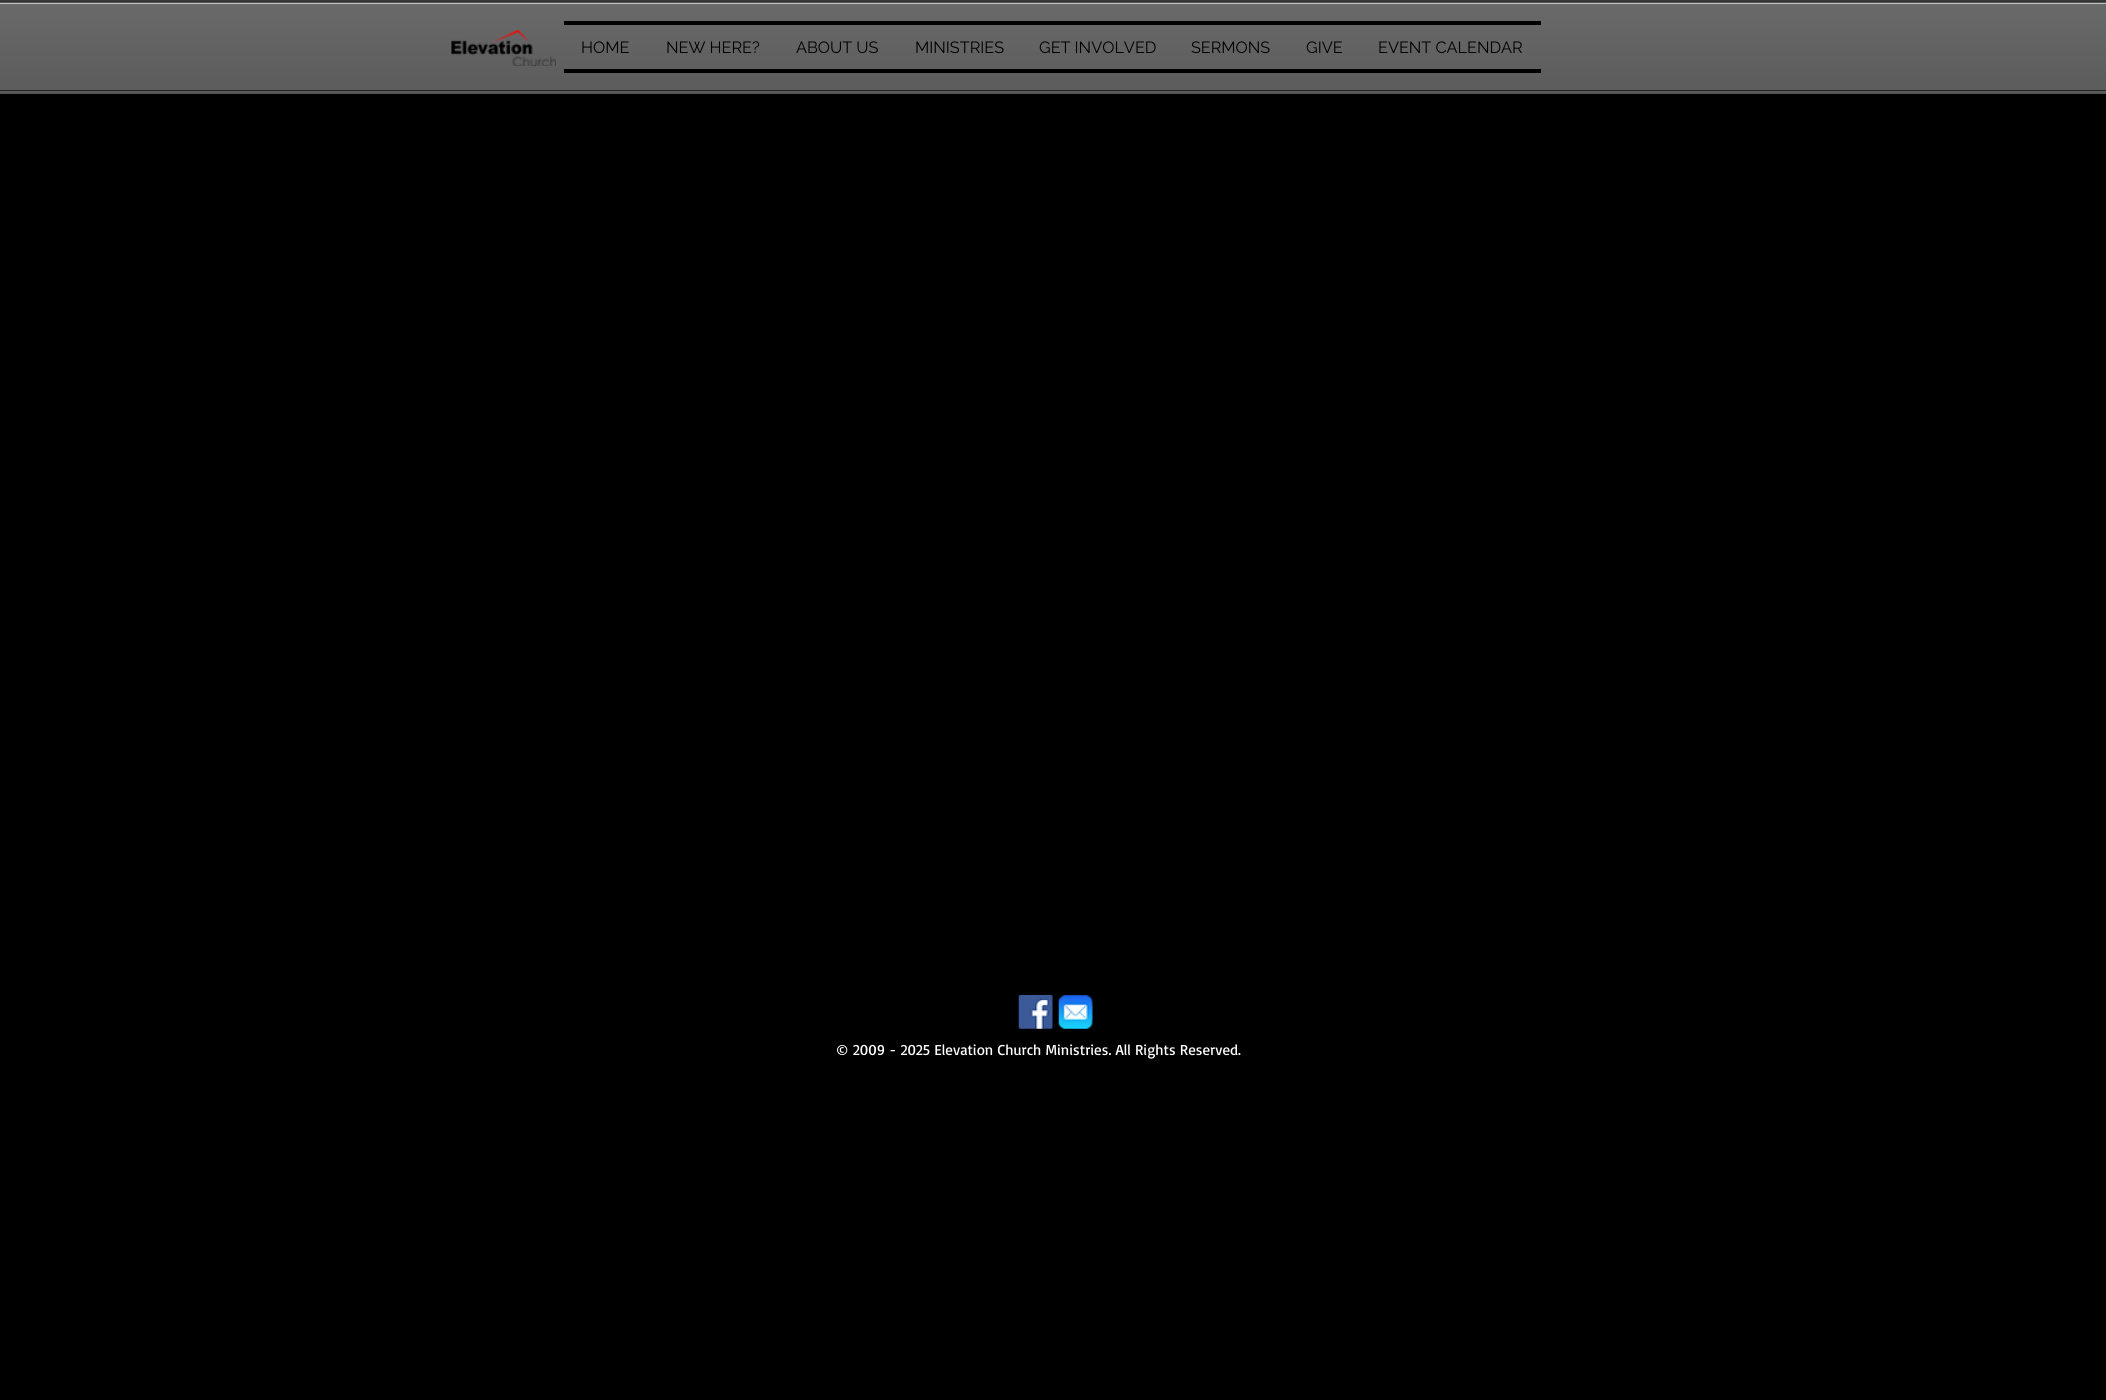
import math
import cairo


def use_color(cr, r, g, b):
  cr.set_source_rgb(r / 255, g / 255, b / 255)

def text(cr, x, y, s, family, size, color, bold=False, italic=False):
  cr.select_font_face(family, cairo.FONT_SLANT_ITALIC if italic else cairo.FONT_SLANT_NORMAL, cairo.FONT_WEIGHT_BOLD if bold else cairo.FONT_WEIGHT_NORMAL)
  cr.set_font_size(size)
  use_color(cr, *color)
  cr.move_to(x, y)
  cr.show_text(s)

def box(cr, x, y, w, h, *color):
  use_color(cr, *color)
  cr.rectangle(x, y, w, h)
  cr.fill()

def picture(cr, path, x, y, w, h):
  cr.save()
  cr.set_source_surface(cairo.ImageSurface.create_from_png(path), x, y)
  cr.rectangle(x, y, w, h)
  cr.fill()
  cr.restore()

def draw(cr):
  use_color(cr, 0, 0, 0)
  cr.paint()
  box(cr, 0, 0, 2106, 94, 54, 54, 54)
  picture(cr, "img_01.png", 0, 2, 2106, 92)
  box(cr, 0, 90, 2106, 1, 37, 37, 37)
  box(cr, 0, 3, 2106, 1, 195, 195, 195)
  picture(cr, "img_02.png", 451, 30, 105, 36)
  box(cr, 564, 21, 977, 4, 0, 0, 0)
  box(cr, 564, 69, 977, 4, 0, 0, 0)
  picture(cr, "img_03.png", 1018, 995, 35, 34)
  picture(cr, "img_04.png", 1058, 995, 35, 34)
  text(cr, 581, 53, "HOME", "Raleway", 16.25, (0, 0, 0))
  text(cr, 666, 53, "NEW HERE?", "Raleway", 16.25, (0, 0, 0))
  text(cr, 796, 53, "ABOUT US", "Raleway", 16.25, (0, 0, 0))
  text(cr, 915, 53, "MINISTRIES", "Raleway", 16.25, (0, 0, 0))
  text(cr, 1039, 53, "GET INVOLVED", "Raleway", 16.25, (0, 0, 0))
  text(cr, 1191, 53, "SERMONS", "Raleway", 16.25, (0, 0, 0))
  text(cr, 1306, 53, "GIVE", "Raleway", 16.25, (0, 0, 0))
  text(cr, 1378, 53, "EVENT CALENDAR", "Raleway", 16.25, (0, 0, 0))
  text(cr, 836, 1055, "© 2009 - 2025 Elevation Church Ministries. All Rights Reserved.", "Basic", 15, (255, 255, 255))


surface = cairo.ImageSurface(cairo.FORMAT_RGB24, 2106, 1400)
cr = cairo.Context(surface)
options = cairo.FontOptions()
options.set_hint_metrics(cairo.HINT_METRICS_OFF)
options.set_hint_style(cairo.HINT_STYLE_NONE)
cr.set_font_options(options)
cr.set_miter_limit(4)
draw(cr)
surface.write_to_png("out.png")
